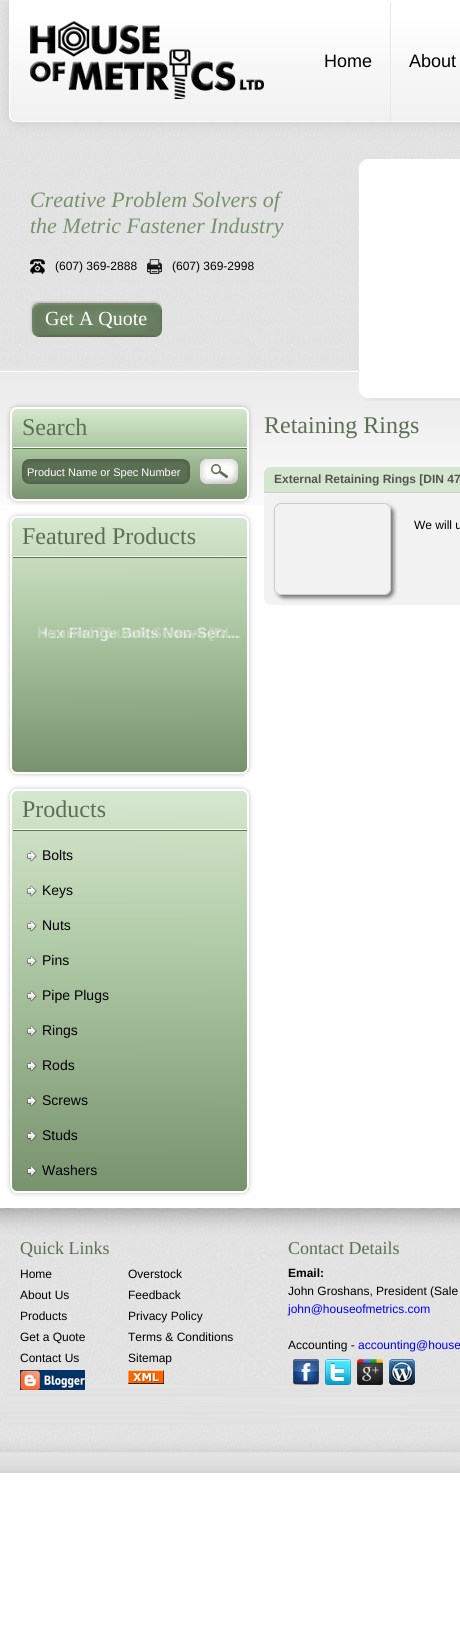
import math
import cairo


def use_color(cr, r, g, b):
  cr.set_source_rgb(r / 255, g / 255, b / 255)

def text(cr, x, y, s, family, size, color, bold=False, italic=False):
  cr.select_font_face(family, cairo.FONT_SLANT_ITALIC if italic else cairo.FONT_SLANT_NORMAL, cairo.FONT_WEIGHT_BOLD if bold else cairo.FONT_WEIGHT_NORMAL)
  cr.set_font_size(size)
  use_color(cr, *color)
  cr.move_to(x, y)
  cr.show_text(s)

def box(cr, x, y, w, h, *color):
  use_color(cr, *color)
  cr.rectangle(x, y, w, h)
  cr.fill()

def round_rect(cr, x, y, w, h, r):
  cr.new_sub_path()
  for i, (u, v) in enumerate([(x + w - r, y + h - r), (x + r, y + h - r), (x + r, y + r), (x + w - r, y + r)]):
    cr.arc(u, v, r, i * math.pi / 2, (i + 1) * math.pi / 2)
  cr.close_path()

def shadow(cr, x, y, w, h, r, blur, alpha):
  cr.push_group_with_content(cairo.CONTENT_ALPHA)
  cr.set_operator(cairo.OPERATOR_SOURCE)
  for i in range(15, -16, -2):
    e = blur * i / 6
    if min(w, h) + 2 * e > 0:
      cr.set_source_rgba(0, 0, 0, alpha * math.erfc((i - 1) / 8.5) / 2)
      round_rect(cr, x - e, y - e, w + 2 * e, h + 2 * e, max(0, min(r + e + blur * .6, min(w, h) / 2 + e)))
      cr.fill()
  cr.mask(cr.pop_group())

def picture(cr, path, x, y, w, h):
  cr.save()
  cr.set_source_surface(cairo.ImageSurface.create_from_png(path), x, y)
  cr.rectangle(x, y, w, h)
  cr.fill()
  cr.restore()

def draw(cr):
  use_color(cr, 255, 255, 255)
  cr.paint()
  picture(cr, "img_01.png", 0, 0, 460, 505)
  use_color(cr, 0, 0, 0)
  shadow(cr, 9, 1, 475, 122, 7, 5.5, 0.11)
  picture(cr, "img_02.png", 9, 1, 451, 121)
  cr.new_path()
  cr.move_to(9.5, 0.5)
  cr.line_to(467.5, 0.5)
  cr.line_to(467.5, 115)
  cr.curve_to(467.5, 118.5, 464.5, 121.5, 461, 121.5)
  cr.line_to(16, 121.5)
  cr.curve_to(12.5, 121.5, 9.5, 118.5, 9.5, 115)
  cr.close_path()
  use_color(cr, 255, 255, 255)
  cr.set_line_width(1)
  cr.stroke()
  picture(cr, "img_03.png", 30, 21, 234, 78)
  box(cr, 390, 2, 1, 119, 232, 232, 231)
  picture(cr, "img_04.png", 30, 259, 15, 15)
  picture(cr, "img_05.png", 147, 259, 15, 15)
  picture(cr, "img_06.png", 30, 301, 132, 36)
  picture(cr, "img_07.png", 359, 159, 101, 242)
  use_color(cr, 50, 50, 50)
  shadow(cr, 10, 407, 239, 94, 7, 2.5, 0.3)
  cr.save()
  round_rect(cr, 10, 407, 239, 94, 7)
  cr.clip()
  gradient = cairo.LinearGradient(130, 409, 130, 499)
  gradient.add_color_stop_rgba(0, 0.839, 0.906, 0.812, 1)
  gradient.add_color_stop_rgba(0.35, 0.706, 0.804, 0.667, 1)
  gradient.add_color_stop_rgba(1, 0.471, 0.573, 0.431, 1)
  cr.set_source(gradient)
  cr.rectangle(10, 409, 239, 90)
  cr.fill()
  cr.restore()
  round_rect(cr, 11, 408, 237, 92, 6)
  use_color(cr, 255, 255, 255)
  cr.set_line_width(2)
  cr.stroke()
  picture(cr, "img_08.png", 13, 447, 234, 2)
  picture(cr, "img_09.png", 22, 459, 168, 25)
  picture(cr, "img_10.png", 200, 459, 38, 25)
  use_color(cr, 50, 50, 50)
  shadow(cr, 10, 516, 239, 258, 7, 2.5, 0.3)
  cr.save()
  round_rect(cr, 10, 516, 239, 258, 7)
  cr.clip()
  gradient = cairo.LinearGradient(129, 518, 130, 772)
  gradient.add_color_stop_rgba(0, 0.839, 0.906, 0.812, 1)
  gradient.add_color_stop_rgba(0.35, 0.706, 0.804, 0.667, 1)
  gradient.add_color_stop_rgba(1, 0.471, 0.573, 0.431, 1)
  cr.set_source(gradient)
  cr.rectangle(10, 518, 239, 254)
  cr.fill()
  cr.restore()
  round_rect(cr, 11, 517, 237, 256, 6)
  use_color(cr, 255, 255, 255)
  cr.stroke()
  picture(cr, "img_08.png", 13, 556, 234, 2)
  use_color(cr, 50, 50, 50)
  shadow(cr, 10, 789, 239, 404, 7, 2.5, 0.3)
  cr.save()
  round_rect(cr, 10, 789, 239, 404, 7)
  cr.clip()
  gradient = cairo.LinearGradient(129, 791, 130, 1191)
  gradient.add_color_stop_rgba(0, 0.839, 0.906, 0.812, 1)
  gradient.add_color_stop_rgba(0.35, 0.706, 0.804, 0.667, 1)
  gradient.add_color_stop_rgba(1, 0.471, 0.573, 0.431, 1)
  cr.set_source(gradient)
  cr.rectangle(10, 791, 239, 400)
  cr.fill()
  cr.restore()
  round_rect(cr, 11, 790, 237, 402, 6)
  use_color(cr, 255, 255, 255)
  cr.stroke()
  picture(cr, "img_08.png", 13, 829, 234, 2)
  picture(cr, "img_11.png", 27, 850, 10, 12)
  picture(cr, "img_12.png", 27, 885, 10, 12)
  picture(cr, "img_13.png", 27, 920, 10, 12)
  picture(cr, "img_14.png", 27, 955, 10, 12)
  picture(cr, "img_15.png", 27, 990, 10, 12)
  picture(cr, "img_16.png", 27, 1025, 10, 12)
  picture(cr, "img_17.png", 27, 1060, 10, 12)
  picture(cr, "img_18.png", 27, 1095, 10, 12)
  picture(cr, "img_19.png", 27, 1130, 10, 12)
  picture(cr, "img_20.png", 27, 1165, 10, 12)
  use_color(cr, 212, 230, 205)
  cr.new_path()
  cr.move_to(271, 467)
  cr.line_to(460, 467)
  cr.curve_to(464, 467, 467, 470, 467, 474)
  cr.line_to(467, 493)
  cr.line_to(264, 493)
  cr.line_to(264, 474)
  cr.curve_to(264, 470, 267, 467, 271, 467)
  cr.close_path()
  cr.fill()
  box(cr, 264, 492, 196, 1, 204, 204, 204)
  use_color(cr, 242, 242, 242)
  round_rect(cr, 264, 493, 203, 112, 7)
  cr.fill()
  cr.save()
  cr.set_fill_rule(cairo.FILL_RULE_EVEN_ODD)
  cr.new_path()
  cr.move_to(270, 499)
  cr.line_to(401, 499)
  cr.line_to(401, 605)
  cr.line_to(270, 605)
  cr.close_path()
  cr.move_to(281, 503)
  cr.line_to(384, 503)
  cr.curve_to(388, 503, 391, 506, 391, 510)
  cr.line_to(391, 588)
  cr.curve_to(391, 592, 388, 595, 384, 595)
  cr.line_to(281, 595)
  cr.curve_to(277, 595, 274, 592, 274, 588)
  cr.line_to(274, 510)
  cr.curve_to(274, 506, 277, 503, 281, 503)
  cr.close_path()
  cr.clip()
  use_color(cr, 120, 120, 120)
  shadow(cr, 277, 506, 117, 92, 7, 2, 1)
  cr.restore()
  round_rect(cr, 274.5, 503.5, 116, 91, 6.5)
  use_color(cr, 204, 204, 204)
  cr.set_line_width(1)
  cr.stroke()
  picture(cr, "img_21.png", 0, 1452, 460, 21)
  picture(cr, "img_22.png", 0, 1208, 460, 244)
  picture(cr, "img_23.png", 20, 1370, 65, 20)
  picture(cr, "img_24.png", 128, 1370, 36, 14)
  picture(cr, "img_25.png", 293, 1359, 26, 26)
  picture(cr, "img_26.png", 325, 1359, 26, 26)
  picture(cr, "img_27.png", 357, 1359, 26, 26)
  picture(cr, "img_28.png", 389, 1359, 26, 26)
  text(cr, 324, 67, "Home", "Liberation Sans", 18, (0, 0, 0))
  text(cr, 409, 67, "About", "Liberation Sans", 18, (0, 0, 0))
  text(cr, 30, 207, "Creative Problem Solvers of", "Liberation Serif", 22, (120, 146, 110), italic=True)
  text(cr, 30, 233, "the Metric Fastener Industry", "Liberation Serif", 22, (120, 146, 110), italic=True)
  text(cr, 55, 270, "(607) 369-2888", "Liberation Sans", 12, (0, 0, 0))
  text(cr, 172, 270, "(607) 369-2998", "Liberation Sans", 12, (0, 0, 0))
  text(cr, 45, 325, "Get A Quote", "Liberation Serif", 20, (255, 255, 255))
  text(cr, 22, 435, "Search", "Liberation Serif", 24, (91, 111, 83))
  text(cr, 27, 476, "Product Name or Spec Number", "Liberation Sans", 11, (255, 255, 255))
  text(cr, 22, 544, "Featured Products", "Liberation Serif", 24, (91, 111, 83))
  text(cr, 37, 638, "Hex Flange Bolts Non-Serr...", "Liberation Sans", 15, (229, 237, 226), bold=True)
  text(cr, 37, 638, "Knurled Thumb Screws [DI...", "Liberation Sans", 15, (192, 211, 184), bold=True)
  text(cr, 22, 817, "Products", "Liberation Serif", 24, (91, 111, 83))
  text(cr, 42, 860, "Bolts", "Liberation Sans", 14, (0, 0, 0))
  text(cr, 42, 895, "Keys", "Liberation Sans", 14, (0, 0, 0))
  text(cr, 42, 930, "Nuts", "Liberation Sans", 14, (0, 0, 0))
  text(cr, 42, 965, "Pins", "Liberation Sans", 14, (0, 0, 0))
  text(cr, 42, 1000, "Pipe Plugs", "Liberation Sans", 14, (0, 0, 0))
  text(cr, 42, 1035, "Rings", "Liberation Sans", 14, (0, 0, 0))
  text(cr, 42, 1070, "Rods", "Liberation Sans", 14, (0, 0, 0))
  text(cr, 42, 1105, "Screws", "Liberation Sans", 14, (0, 0, 0))
  text(cr, 42, 1140, "Studs", "Liberation Sans", 14, (0, 0, 0))
  text(cr, 42, 1175, "Washers", "Liberation Sans", 14, (0, 0, 0))
  text(cr, 264, 433, "Retaining Rings", "Liberation Serif", 24, (91, 111, 83))
  text(cr, 274, 483, "External Retaining Rings [DIN 47", "Liberation Sans", 12, (84, 84, 84), bold=True)
  text(cr, 414, 529, "We will u", "Liberation Sans", 12, (0, 0, 0))
  text(cr, 20, 1254, "Quick Links", "Liberation Serif", 18, (91, 111, 83))
  text(cr, 20, 1278, "Home", "Liberation Sans", 12, (0, 0, 0))
  text(cr, 128, 1278, "Overstock", "Liberation Sans", 12, (0, 0, 0))
  text(cr, 20, 1299, "About Us", "Liberation Sans", 12, (0, 0, 0))
  text(cr, 128, 1299, "Feedback", "Liberation Sans", 12, (0, 0, 0))
  text(cr, 20, 1320, "Products", "Liberation Sans", 12, (0, 0, 0))
  text(cr, 128, 1320, "Privacy Policy", "Liberation Sans", 12, (0, 0, 0))
  text(cr, 20, 1341, "Get a Quote", "Liberation Sans", 12, (0, 0, 0))
  text(cr, 128, 1341, "Terms & Conditions", "Liberation Sans", 12, (0, 0, 0))
  text(cr, 20, 1362, "Contact Us", "Liberation Sans", 12, (0, 0, 0))
  text(cr, 128, 1362, "Sitemap", "Liberation Sans", 12, (0, 0, 0))
  text(cr, 288, 1254, "Contact Details", "Liberation Serif", 18, (91, 111, 83))
  text(cr, 288, 1277, "Email:", "Liberation Sans", 12, (0, 0, 0), bold=True)
  text(cr, 288, 1295, "John Groshans, President (Sale", "Liberation Sans", 12, (0, 0, 0))
  text(cr, 288, 1313, "john@houseofmetrics.com", "Liberation Sans", 12, (0, 0, 255))
  text(cr, 288, 1349, "Accounting -", "Liberation Sans", 12, (0, 0, 0))
  text(cr, 358, 1349, "accounting@house", "Liberation Sans", 12, (0, 0, 255))


surface = cairo.ImageSurface(cairo.FORMAT_RGB24, 460, 1639)
cr = cairo.Context(surface)
options = cairo.FontOptions()
options.set_hint_metrics(cairo.HINT_METRICS_OFF)
options.set_hint_style(cairo.HINT_STYLE_NONE)
cr.set_font_options(options)
cr.set_miter_limit(4)
draw(cr)
surface.write_to_png("out.png")
